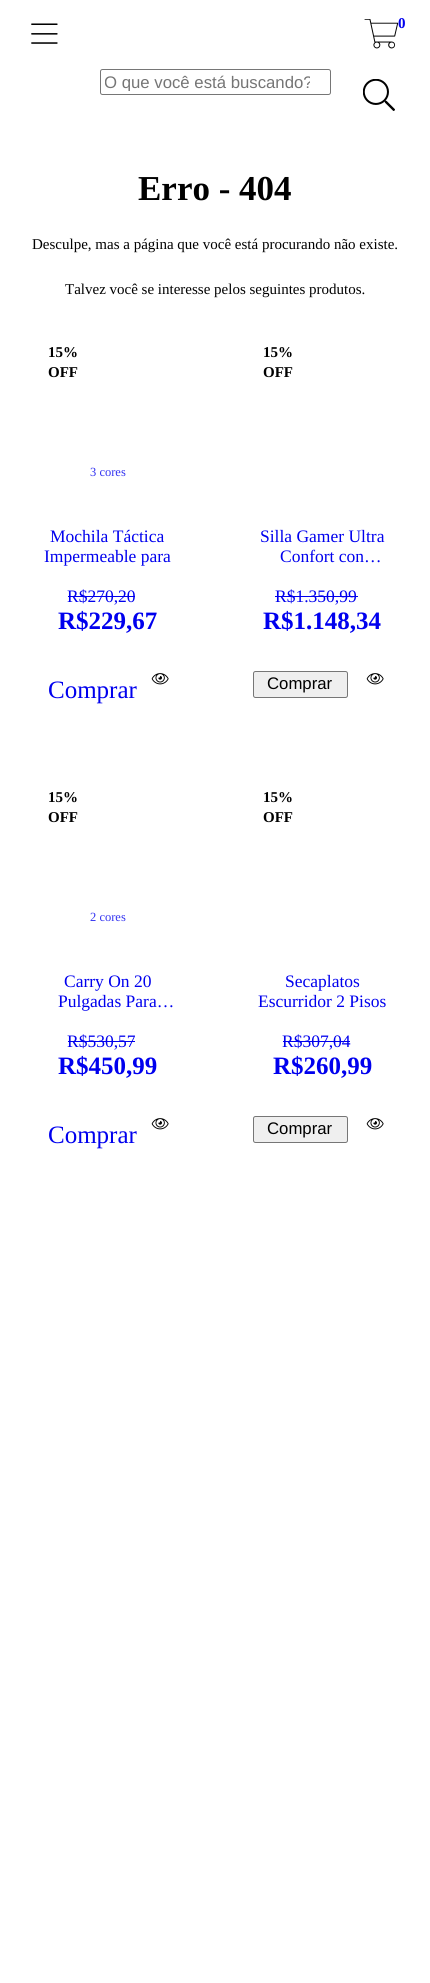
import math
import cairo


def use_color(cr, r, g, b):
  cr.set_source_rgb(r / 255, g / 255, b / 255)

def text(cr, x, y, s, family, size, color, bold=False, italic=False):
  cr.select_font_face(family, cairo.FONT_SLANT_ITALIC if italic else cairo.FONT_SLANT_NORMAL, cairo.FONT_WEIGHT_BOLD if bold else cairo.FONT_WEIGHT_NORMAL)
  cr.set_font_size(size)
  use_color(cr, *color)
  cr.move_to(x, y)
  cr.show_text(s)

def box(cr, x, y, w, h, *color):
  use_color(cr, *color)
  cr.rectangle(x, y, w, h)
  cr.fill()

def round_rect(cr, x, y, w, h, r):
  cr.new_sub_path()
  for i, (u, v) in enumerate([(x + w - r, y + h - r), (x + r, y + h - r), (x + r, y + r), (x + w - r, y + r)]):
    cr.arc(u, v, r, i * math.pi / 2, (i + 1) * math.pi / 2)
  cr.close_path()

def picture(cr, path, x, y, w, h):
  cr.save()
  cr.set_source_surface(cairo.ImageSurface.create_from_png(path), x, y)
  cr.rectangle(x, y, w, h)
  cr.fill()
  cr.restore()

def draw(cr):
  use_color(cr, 255, 255, 255)
  cr.paint()
  picture(cr, "img_01.png", 31, 23, 27, 21)
  picture(cr, "img_02.png", 364, 19, 35, 30)
  round_rect(cr, 100.5, 69.5, 230, 25, 2)
  use_color(cr, 118, 118, 118)
  cr.set_line_width(1)
  cr.stroke()
  picture(cr, "img_03.png", 363, 79, 32, 32)
  box(cr, 68, 596, 67, 1, 0, 0, 238)
  picture(cr, "img_04.png", 151, 673, 18, 12)
  box(cr, 275, 596, 83, 1, 0, 0, 238)
  use_color(cr, 239, 239, 239)
  round_rect(cr, 253.5, 671.5, 94, 26, 2)
  cr.fill_preserve()
  use_color(cr, 118, 118, 118)
  cr.stroke()
  picture(cr, "img_04.png", 366, 673, 18, 12)
  box(cr, 68, 1041, 67, 1, 0, 0, 238)
  picture(cr, "img_04.png", 151, 1118, 18, 12)
  box(cr, 283, 1041, 67, 1, 0, 0, 238)
  use_color(cr, 239, 239, 239)
  round_rect(cr, 253.5, 1116.5, 94, 26, 2)
  cr.fill_preserve()
  use_color(cr, 118, 118, 118)
  cr.stroke()
  picture(cr, "img_04.png", 366, 1118, 18, 12)
  text(cr, 398, 28, "0", "Liberation Serif", 15, (0, 0, 238), bold=True)
  cr.save()
  cr.rectangle(105, 73, 205, 18)
  cr.clip()
  text(cr, 104, 88, "O que você está buscando?", "Liberation Sans", 16.75, (117, 117, 117))
  cr.restore()
  text(cr, 138, 200, "Erro - 404", "Liberation Serif", 35, (0, 0, 0), bold=True)
  text(cr, 32, 249, "Desculpe, mas a página que você está procurando não existe.", "Liberation Serif", 15, (0, 0, 0))
  text(cr, 65, 294, "Talvez você se interesse pelos seguintes produtos.", "Liberation Serif", 15, (0, 0, 0))
  text(cr, 48, 357, "15%", "Liberation Serif", 15, (0, 0, 0), bold=True)
  text(cr, 48, 377, "OFF", "Liberation Serif", 15, (0, 0, 0), bold=True)
  text(cr, 90, 476, "3 cores", "Liberation Serif", 12.5, (51, 51, 241))
  text(cr, 50, 542, "Mochila Táctica", "Liberation Serif", 17.5, (0, 0, 238))
  text(cr, 44, 562, "Impermeable para", "Liberation Serif", 17.5, (0, 0, 238))
  text(cr, 67, 602, "R$270,20", "Liberation Serif", 17.5, (0, 0, 238))
  text(cr, 58, 629, "R$229,67", "Liberation Serif", 25, (0, 0, 238), bold=True)
  text(cr, 48, 698, "Comprar", "Liberation Serif", 25, (0, 0, 238))
  text(cr, 263, 357, "15%", "Liberation Serif", 15, (0, 0, 0), bold=True)
  text(cr, 263, 377, "OFF", "Liberation Serif", 15, (0, 0, 0), bold=True)
  text(cr, 260, 542, "Silla Gamer Ultra", "Liberation Serif", 17.5, (0, 0, 238))
  text(cr, 280, 562, "Confort con…", "Liberation Serif", 17.5, (0, 0, 238))
  text(cr, 275, 602, "R$1.350,99", "Liberation Serif", 17.5, (0, 0, 238))
  text(cr, 263, 629, "R$1.148,34", "Liberation Serif", 25, (0, 0, 238), bold=True)
  text(cr, 267, 689, "Comprar", "Liberation Sans", 16.75, (0, 0, 0))
  text(cr, 48, 802, "15%", "Liberation Serif", 15, (0, 0, 0), bold=True)
  text(cr, 48, 822, "OFF", "Liberation Serif", 15, (0, 0, 0), bold=True)
  text(cr, 90, 921, "2 cores", "Liberation Serif", 12.5, (51, 51, 241))
  text(cr, 64, 987, "Carry On 20", "Liberation Serif", 17.5, (0, 0, 238))
  text(cr, 58, 1007, "Pulgadas Para…", "Liberation Serif", 17.5, (0, 0, 238))
  text(cr, 67, 1047, "R$530,57", "Liberation Serif", 17.5, (0, 0, 238))
  text(cr, 58, 1074, "R$450,99", "Liberation Serif", 25, (0, 0, 238), bold=True)
  text(cr, 48, 1143, "Comprar", "Liberation Serif", 25, (0, 0, 238))
  text(cr, 263, 802, "15%", "Liberation Serif", 15, (0, 0, 0), bold=True)
  text(cr, 263, 822, "OFF", "Liberation Serif", 15, (0, 0, 0), bold=True)
  text(cr, 285, 987, "Secaplatos", "Liberation Serif", 17.5, (0, 0, 238))
  text(cr, 258, 1007, "Escurridor 2 Pisos", "Liberation Serif", 17.5, (0, 0, 238))
  text(cr, 282, 1047, "R$307,04", "Liberation Serif", 17.5, (0, 0, 238))
  text(cr, 273, 1074, "R$260,99", "Liberation Serif", 25, (0, 0, 238), bold=True)
  text(cr, 267, 1134, "Comprar", "Liberation Sans", 16.75, (0, 0, 0))


surface = cairo.ImageSurface(cairo.FORMAT_RGB24, 430, 1983)
cr = cairo.Context(surface)
options = cairo.FontOptions()
options.set_hint_metrics(cairo.HINT_METRICS_OFF)
options.set_hint_style(cairo.HINT_STYLE_NONE)
cr.set_font_options(options)
cr.set_miter_limit(4)
draw(cr)
surface.write_to_png("out.png")
